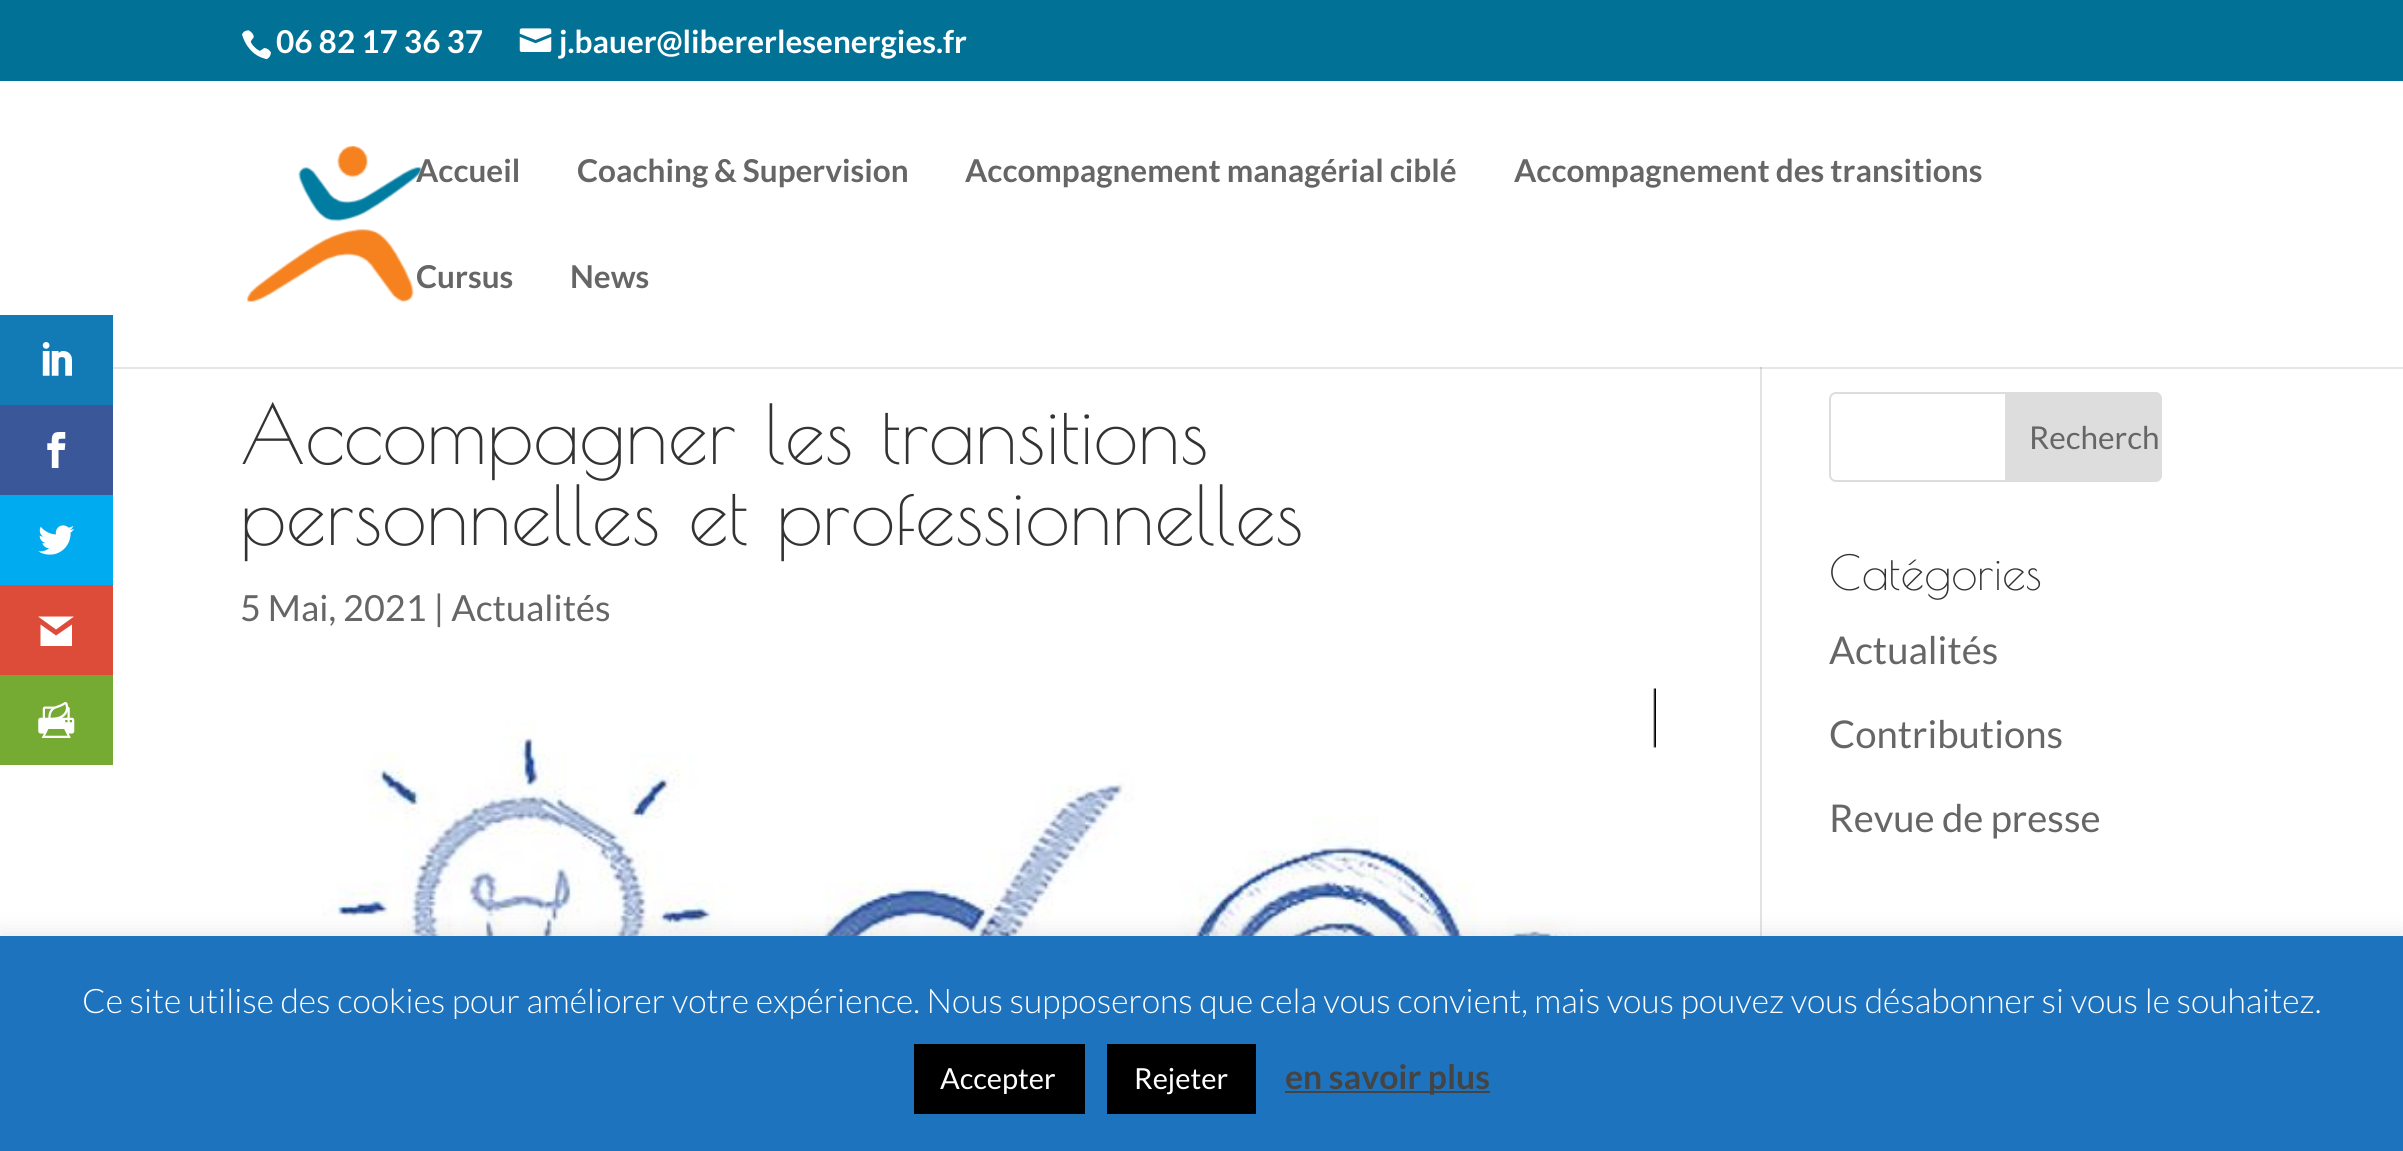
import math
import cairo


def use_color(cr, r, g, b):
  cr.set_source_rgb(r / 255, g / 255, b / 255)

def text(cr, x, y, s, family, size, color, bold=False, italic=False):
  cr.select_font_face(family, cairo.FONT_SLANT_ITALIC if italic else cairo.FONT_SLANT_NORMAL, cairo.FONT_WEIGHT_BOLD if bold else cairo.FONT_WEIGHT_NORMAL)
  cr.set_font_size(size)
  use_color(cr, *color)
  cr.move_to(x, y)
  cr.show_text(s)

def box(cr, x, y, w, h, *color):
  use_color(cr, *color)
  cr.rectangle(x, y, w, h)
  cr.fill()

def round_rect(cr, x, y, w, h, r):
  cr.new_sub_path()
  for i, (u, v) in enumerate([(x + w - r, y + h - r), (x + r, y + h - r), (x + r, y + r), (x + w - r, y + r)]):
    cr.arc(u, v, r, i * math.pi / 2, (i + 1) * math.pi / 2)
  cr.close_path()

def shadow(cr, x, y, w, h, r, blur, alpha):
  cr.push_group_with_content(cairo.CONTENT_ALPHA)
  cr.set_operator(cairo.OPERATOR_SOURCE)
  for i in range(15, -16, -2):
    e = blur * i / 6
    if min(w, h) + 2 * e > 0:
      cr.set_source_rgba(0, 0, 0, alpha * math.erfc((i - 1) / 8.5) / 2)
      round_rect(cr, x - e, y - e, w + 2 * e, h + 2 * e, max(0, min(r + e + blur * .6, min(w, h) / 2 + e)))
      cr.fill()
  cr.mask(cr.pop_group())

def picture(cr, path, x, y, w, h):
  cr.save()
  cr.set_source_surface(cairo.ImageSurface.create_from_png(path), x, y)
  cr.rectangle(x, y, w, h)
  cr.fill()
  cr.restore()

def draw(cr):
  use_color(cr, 255, 255, 255)
  cr.paint()
  box(cr, 113, 367, 2290, 2, 230, 230, 230)
  box(cr, 0, 315, 113, 90, 18, 123, 182)
  picture(cr, "img_01.png", 42, 342, 30, 34)
  box(cr, 0, 405, 113, 90, 58, 87, 154)
  picture(cr, "img_02.png", 47, 432, 19, 36)
  box(cr, 0, 495, 113, 90, 0, 171, 240)
  picture(cr, "img_03.png", 38, 525, 36, 30)
  box(cr, 0, 585, 113, 90, 221, 75, 57)
  use_color(cr, 255, 255, 255)
  cr.new_path()
  cr.move_to(74, 616.5)
  cr.line_to(38, 616.5)
  cr.line_to(56, 629.5)
  cr.close_path()
  cr.move_to(56, 635.5)
  cr.line_to(40.5, 624.5)
  cr.line_to(40.5, 646)
  cr.line_to(72, 646)
  cr.line_to(72, 624.5)
  cr.close_path()
  cr.fill()
  box(cr, 0, 675, 113, 90, 117, 170, 51)
  picture(cr, "img_04.png", 38, 702, 37, 36)
  box(cr, 0, 0, 2403, 81, 2, 113, 150)
  picture(cr, "img_05.png", 242, 30, 29, 30)
  picture(cr, "img_06.png", 519, 28, 33, 24)
  picture(cr, "img_07.png", 247, 146, 175, 157)
  box(cr, 1760, 369, 2, 567, 226, 226, 226)
  box(cr, 1760, 367, 2, 2, 203, 203, 203)
  picture(cr, "img_08.png", 322, 688, 1334, 248)
  round_rect(cr, 1830, 393, 331, 88, 6)
  use_color(cr, 221, 221, 221)
  cr.stroke()
  cr.new_path()
  cr.move_to(2006, 393)
  cr.line_to(2155, 393)
  cr.curve_to(2158.5, 393, 2161, 395.5, 2161, 399)
  cr.line_to(2161, 475)
  cr.curve_to(2161, 478.5, 2158.5, 481, 2155, 481)
  cr.line_to(2006, 481)
  cr.close_path()
  cr.fill_preserve()
  cr.stroke()
  use_color(cr, 172, 171, 171)
  shadow(cr, 0, 934, 2403, 216, 0, 11, 0.3)
  box(cr, 0, 936, 2403, 215, 30, 115, 190)
  box(cr, 914, 1044, 171, 70, 0, 0, 0)
  box(cr, 1107, 1044, 149, 70, 0, 0, 0)
  box(cr, 1285, 1091, 205, 2, 68, 68, 68)
  text(cr, 276, 53, "06 82 17 36 37", "Lato", 31.5, (255, 255, 255), bold=True)
  text(cr, 559, 53, "j.bauer@libererlesenergies.fr", "Lato", 31.5, (255, 255, 255), bold=True)
  text(cr, 416, 182, "Accueil", "Lato", 31.5, (102, 102, 102), bold=True)
  text(cr, 577, 182, "Coaching & Supervision", "Lato", 31.5, (102, 102, 102), bold=True)
  text(cr, 965, 182, "Accompagnement managérial ciblé", "Lato", 31.5, (102, 102, 102), bold=True)
  text(cr, 1514, 182, "Accompagnement des transitions", "Lato", 31.5, (102, 102, 102), bold=True)
  text(cr, 416, 288, "Cursus", "Lato", 31.5, (102, 102, 102), bold=True)
  text(cr, 570, 288, "News", "Lato", 31.5, (102, 102, 102), bold=True)
  text(cr, 240, 464, "Accompagner les transitions", "Poiret One", 81, (51, 51, 51))
  text(cr, 240, 545, "personnelles et professionnelles", "Poiret One", 81, (51, 51, 51))
  text(cr, 240, 621, "5 Mai, 2021 | Actualités", "Lato", 36, (102, 102, 102))
  text(cr, 2029, 449, "Recherch", "Lato", 31.5, (102, 102, 102))
  text(cr, 1829, 590, "Catégories", "Poiret One", 47.25, (51, 51, 51))
  text(cr, 1829, 664, "Actualités", "Lato", 38.25, (102, 102, 102))
  text(cr, 1829, 748, "Contributions", "Lato", 38.25, (102, 102, 102))
  text(cr, 1829, 832, "Revue de presse", "Lato", 38.25, (102, 102, 102))
  text(cr, 82, 1013, "Ce site utilise des cookies pour améliorer votre expérience. Nous supposerons que cela vous convient, mais vous pouvez vous désabonner si vous le souhaitez.", "Lato Light", 33.75, (255, 255, 255))
  text(cr, 940, 1089, "Accepter", "Lato", 29, (255, 255, 255))
  text(cr, 1134, 1089, "Rejeter", "Lato", 29, (255, 255, 255))
  text(cr, 1285, 1089, "en savoir plus", "Lato", 33.75, (68, 68, 68), bold=True)


surface = cairo.ImageSurface(cairo.FORMAT_RGB24, 2403, 1151)
cr = cairo.Context(surface)
options = cairo.FontOptions()
options.set_hint_metrics(cairo.HINT_METRICS_OFF)
options.set_hint_style(cairo.HINT_STYLE_NONE)
cr.set_font_options(options)
cr.set_miter_limit(4)
draw(cr)
surface.write_to_png("out.png")
